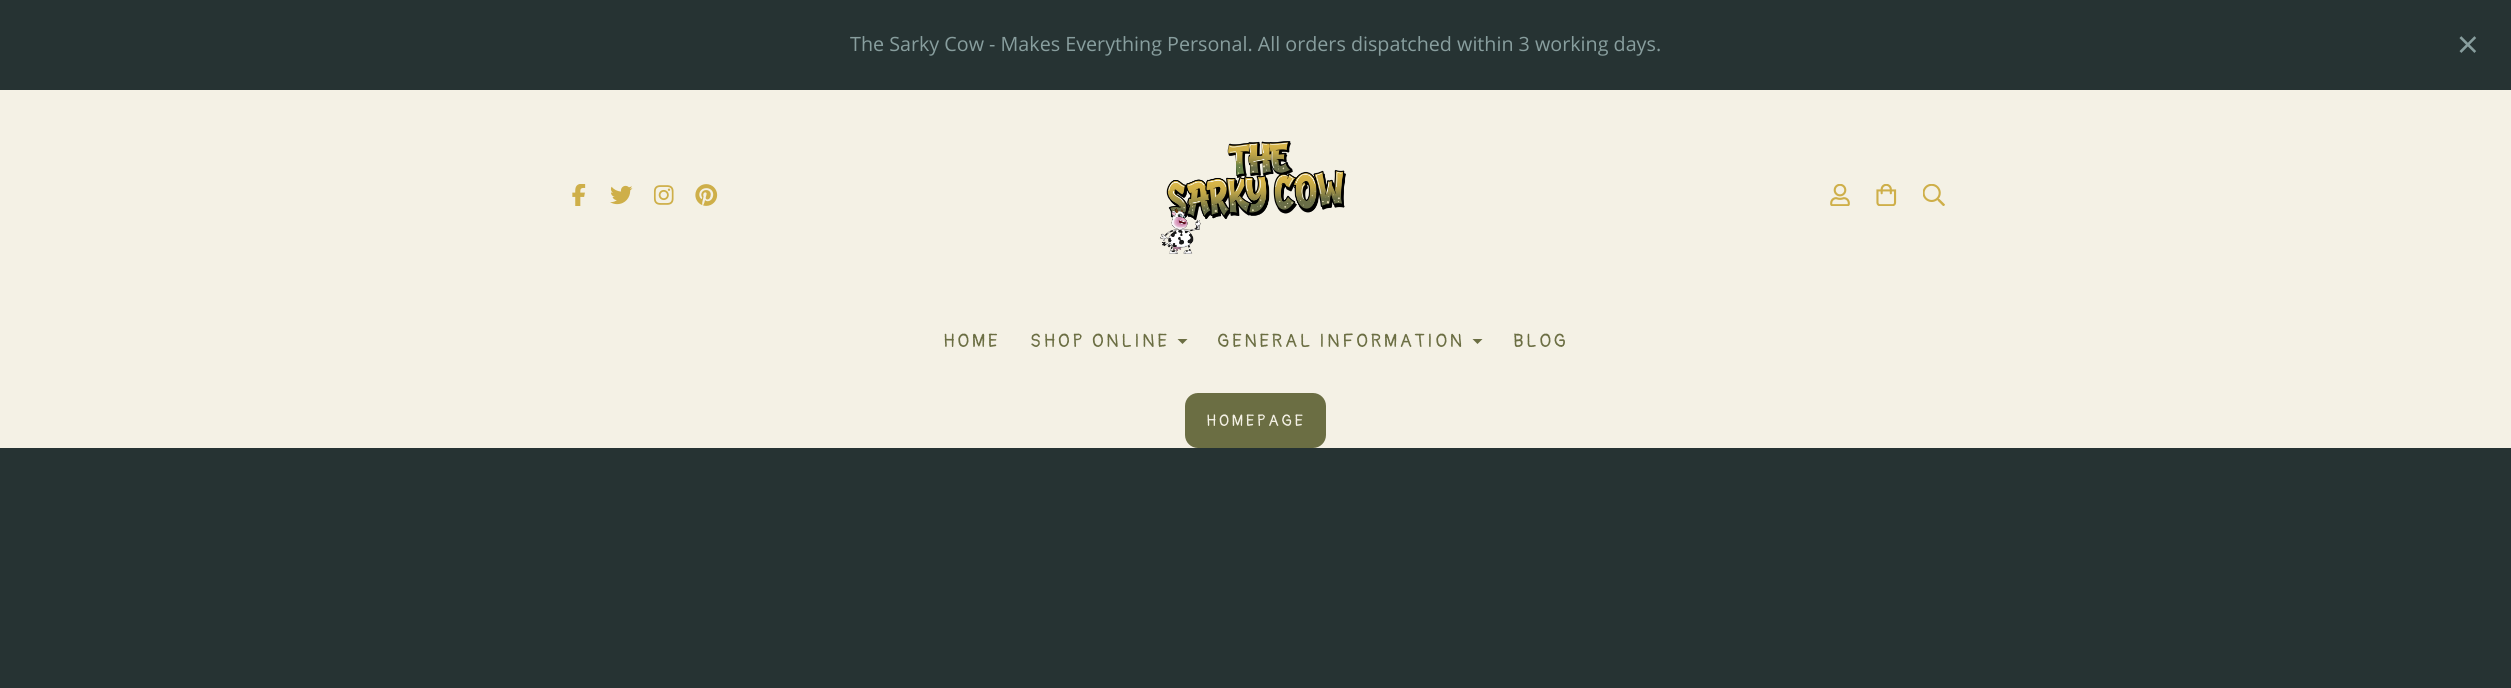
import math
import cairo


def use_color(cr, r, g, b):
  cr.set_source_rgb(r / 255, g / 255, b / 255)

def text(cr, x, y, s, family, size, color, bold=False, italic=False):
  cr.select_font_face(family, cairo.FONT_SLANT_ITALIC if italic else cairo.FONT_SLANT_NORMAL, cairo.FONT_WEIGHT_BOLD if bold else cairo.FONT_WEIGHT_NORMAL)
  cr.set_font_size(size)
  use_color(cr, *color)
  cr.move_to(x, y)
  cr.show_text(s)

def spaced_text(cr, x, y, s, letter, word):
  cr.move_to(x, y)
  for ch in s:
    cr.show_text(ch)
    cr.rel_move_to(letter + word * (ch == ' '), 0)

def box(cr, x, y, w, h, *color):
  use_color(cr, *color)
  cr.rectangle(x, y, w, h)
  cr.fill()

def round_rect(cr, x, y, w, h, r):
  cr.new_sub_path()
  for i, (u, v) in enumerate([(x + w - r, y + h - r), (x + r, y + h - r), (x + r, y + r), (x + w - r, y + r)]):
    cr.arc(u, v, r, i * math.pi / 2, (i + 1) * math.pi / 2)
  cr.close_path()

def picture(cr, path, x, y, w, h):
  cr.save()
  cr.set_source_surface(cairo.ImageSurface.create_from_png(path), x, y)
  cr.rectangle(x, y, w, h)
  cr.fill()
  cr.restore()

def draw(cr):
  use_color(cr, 244, 241, 229)
  cr.paint()
  box(cr, 0, 0, 2511, 90, 38, 51, 51)
  picture(cr, "img_01.png", 572, 184, 14, 22)
  picture(cr, "img_02.png", 610, 185, 23, 20)
  picture(cr, "img_03.png", 653, 185, 21, 20)
  picture(cr, "img_04.png", 695, 184, 23, 22)
  picture(cr, "img_05.png", 1160, 141, 186, 113)
  picture(cr, "img_06.png", 1830, 184, 20, 22)
  picture(cr, "img_07.png", 1876, 184, 21, 22)
  picture(cr, "img_08.png", 1923, 184, 22, 22)
  use_color(cr, 107, 110, 67)
  cr.new_path()
  cr.move_to(1177.5, 339)
  cr.line_to(1187.5, 339)
  cr.line_to(1182.5, 344)
  cr.close_path()
  cr.fill()
  cr.new_path()
  cr.move_to(1472.5, 339)
  cr.line_to(1482.5, 339)
  cr.line_to(1477.5, 344)
  cr.close_path()
  cr.fill()
  round_rect(cr, 1186.5, 394.5, 138, 52, 11.5)
  cr.fill_preserve()
  cr.set_line_width(3)
  cr.stroke()
  box(cr, 0, 448, 2511, 240, 38, 51, 51)
  text(cr, 850, 51, "The Sarky Cow - Makes Everything Personal. All orders dispatched within 3 working days.", "Open Sans", 19.7, (136, 158, 158))
  text(cr, 2457, 58, "×", "Open Sans", 38, (136, 158, 158))
  cr.select_font_face("Pangolin")
  cr.set_font_size(18.75)
  use_color(cr, 107, 110, 67)
  spaced_text(cr, 943, 347, "HOME", 2.5, 0)
  spaced_text(cr, 1030, 347, "SHOP ONLINE", 2.5, 0)
  spaced_text(cr, 1217, 347, "GENERAL INFORMATION", 2.5, 0)
  spaced_text(cr, 1513, 347, "BLOG", 2.5, 0)
  cr.set_font_size(16.25)
  use_color(cr, 244, 241, 229)
  spaced_text(cr, 1206, 426, "HOMEPAGE", 2.5, 0)


surface = cairo.ImageSurface(cairo.FORMAT_RGB24, 2511, 688)
cr = cairo.Context(surface)
options = cairo.FontOptions()
options.set_hint_metrics(cairo.HINT_METRICS_OFF)
options.set_hint_style(cairo.HINT_STYLE_NONE)
cr.set_font_options(options)
cr.set_miter_limit(4)
draw(cr)
surface.write_to_png("out.png")
